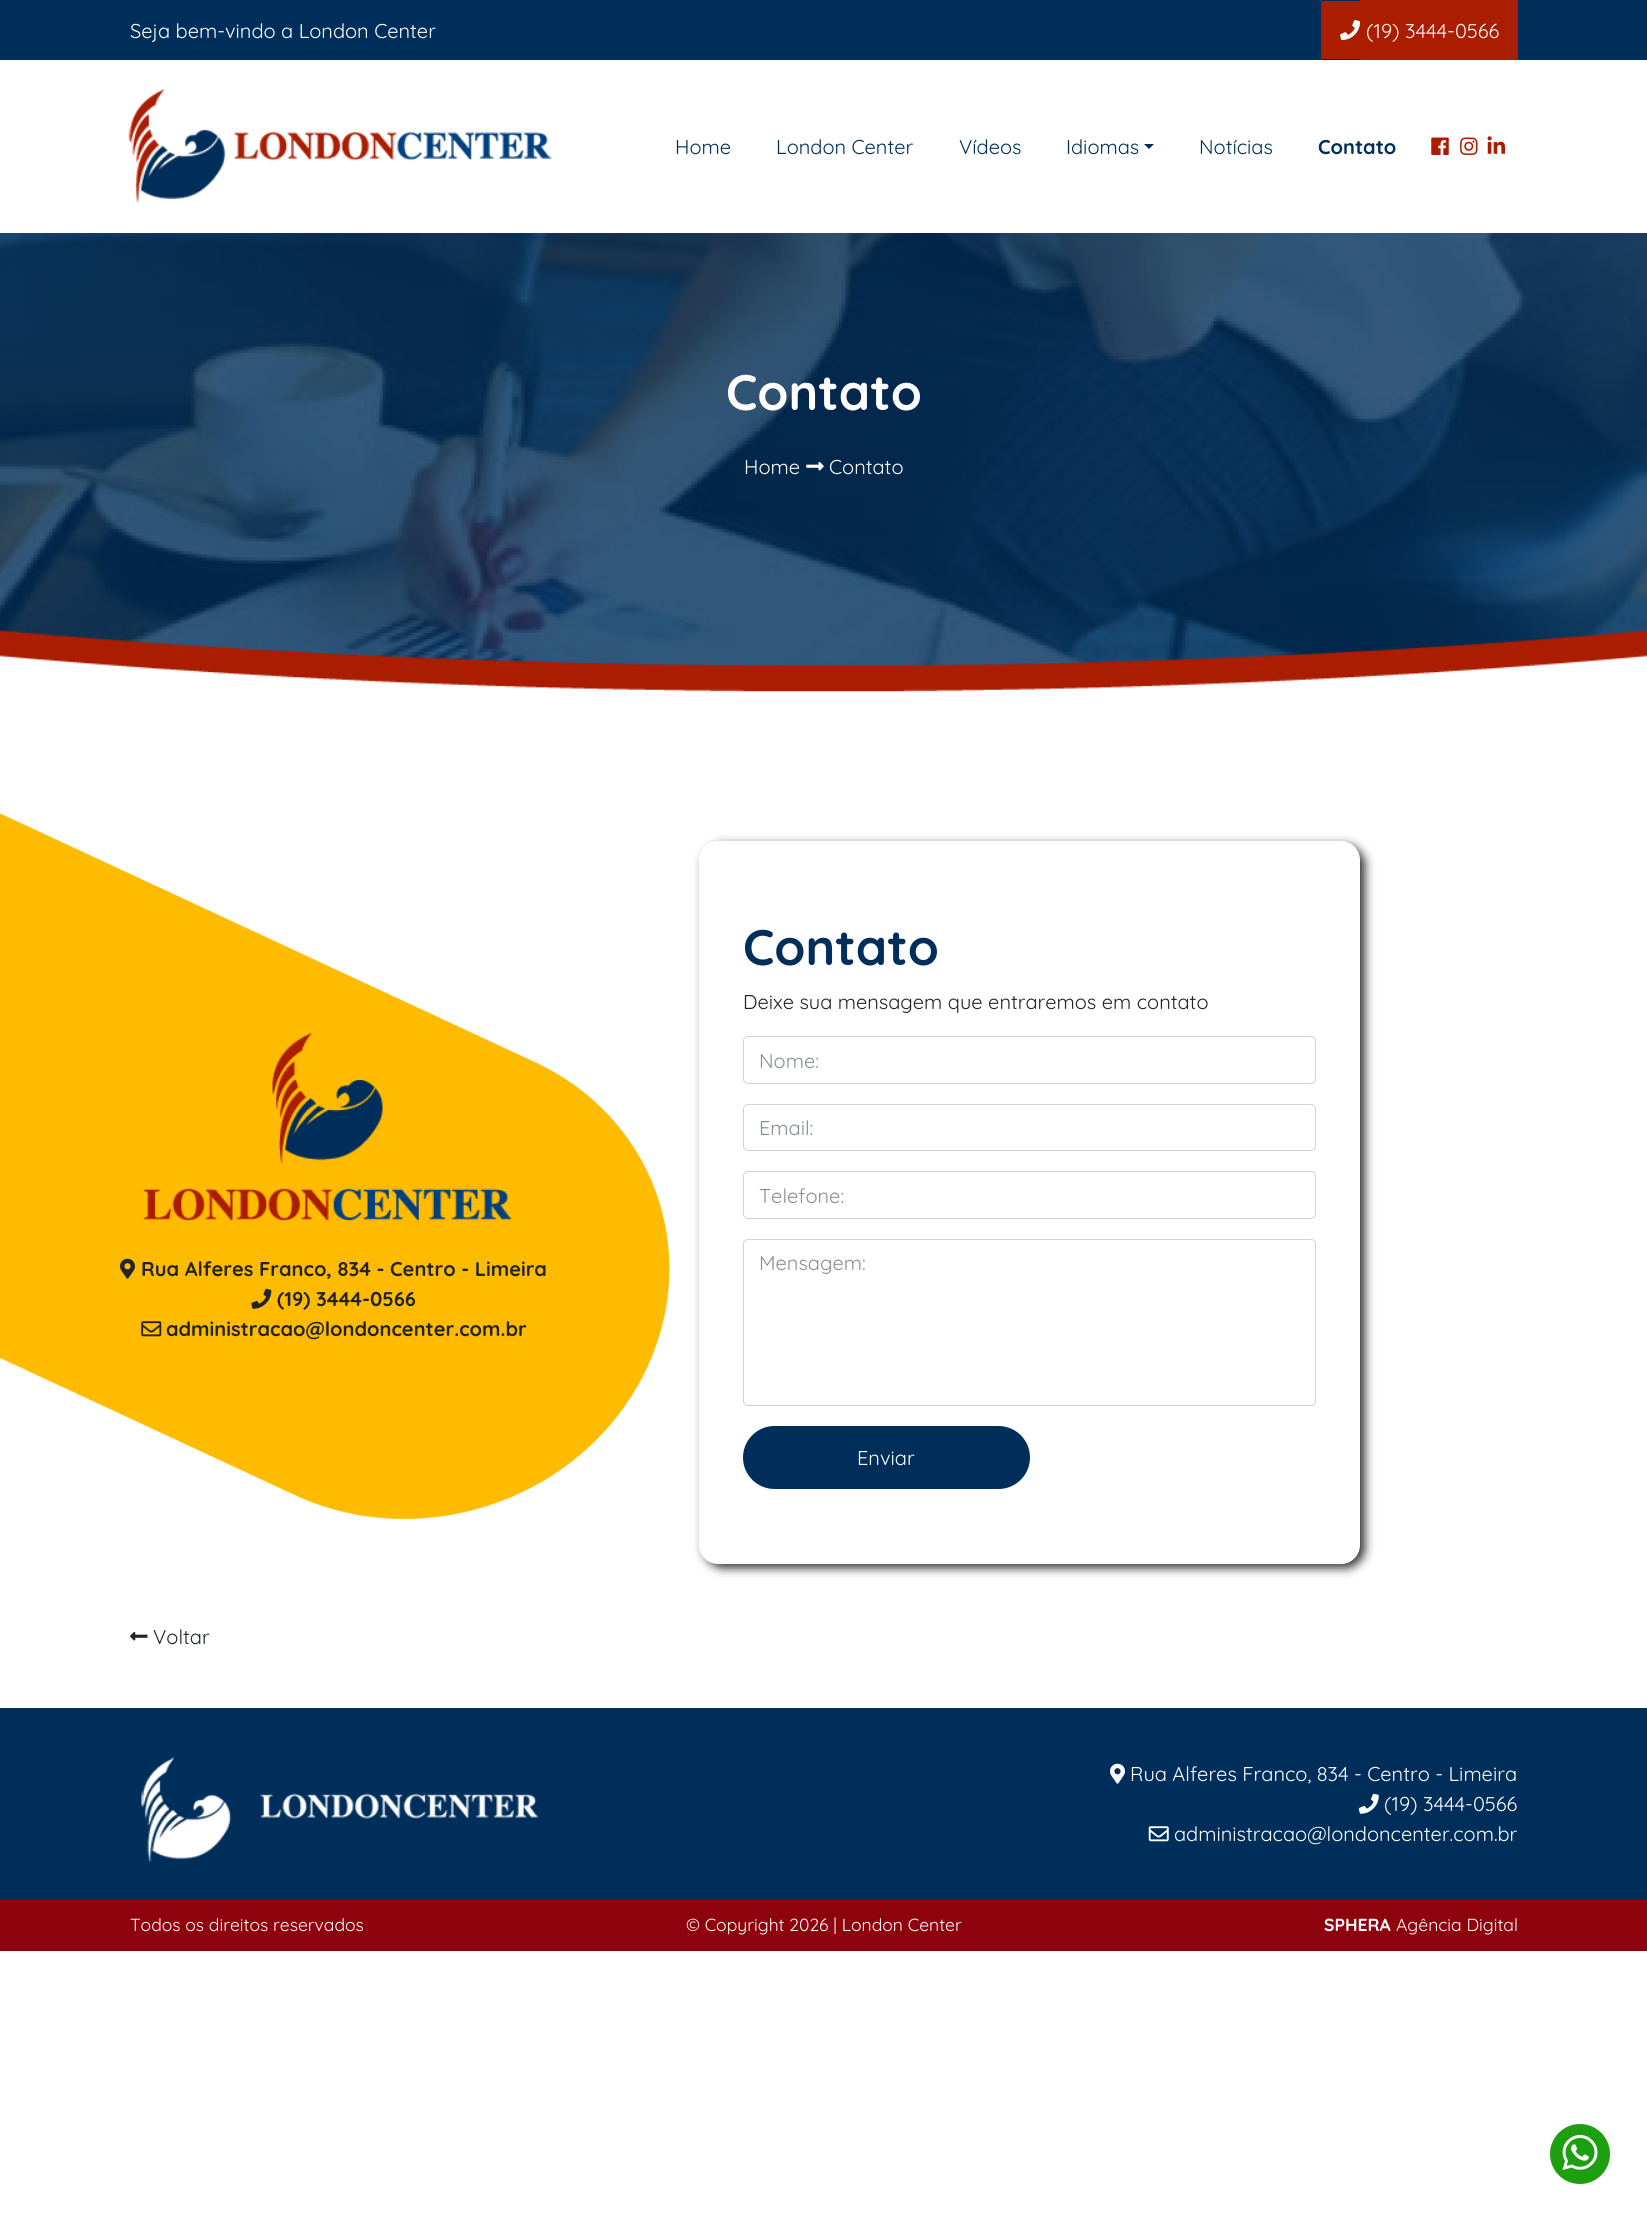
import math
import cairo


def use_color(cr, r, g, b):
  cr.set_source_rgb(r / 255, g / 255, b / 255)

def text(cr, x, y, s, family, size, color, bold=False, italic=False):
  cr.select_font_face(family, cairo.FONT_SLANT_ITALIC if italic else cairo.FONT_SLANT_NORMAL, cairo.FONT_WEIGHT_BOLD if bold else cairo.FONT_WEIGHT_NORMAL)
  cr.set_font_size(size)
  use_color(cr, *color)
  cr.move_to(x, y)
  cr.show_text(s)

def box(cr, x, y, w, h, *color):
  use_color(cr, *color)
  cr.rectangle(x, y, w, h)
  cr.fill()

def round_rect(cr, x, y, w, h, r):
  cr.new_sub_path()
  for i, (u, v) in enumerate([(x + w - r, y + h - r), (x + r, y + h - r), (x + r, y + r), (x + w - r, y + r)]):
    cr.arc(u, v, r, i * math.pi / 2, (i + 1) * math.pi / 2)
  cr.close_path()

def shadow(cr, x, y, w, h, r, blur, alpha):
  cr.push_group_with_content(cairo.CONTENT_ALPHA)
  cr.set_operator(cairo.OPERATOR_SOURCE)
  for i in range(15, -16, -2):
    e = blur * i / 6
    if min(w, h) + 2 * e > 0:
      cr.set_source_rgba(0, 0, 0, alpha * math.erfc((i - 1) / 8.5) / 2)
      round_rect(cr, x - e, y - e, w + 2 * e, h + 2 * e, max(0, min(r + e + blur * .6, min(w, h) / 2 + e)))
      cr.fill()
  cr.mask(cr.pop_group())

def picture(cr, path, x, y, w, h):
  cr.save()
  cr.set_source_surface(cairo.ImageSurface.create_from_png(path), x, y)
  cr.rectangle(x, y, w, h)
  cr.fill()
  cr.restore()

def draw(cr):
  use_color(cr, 255, 255, 255)
  cr.paint()
  box(cr, 0, 0, 1647, 60, 0, 46, 90)
  box(cr, 1321, 1, 39, 58, 170, 29, 1)
  box(cr, 1360, 0, 158, 60, 170, 29, 1)
  picture(cr, "img_01.png", 1340, 20, 20, 20)
  picture(cr, "img_02.png", 128, 88, 424, 115)
  use_color(cr, 0, 46, 90)
  cr.new_path()
  cr.move_to(1144, 144)
  cr.line_to(1154, 144)
  cr.line_to(1149, 149)
  cr.close_path()
  cr.fill()
  picture(cr, "img_03.png", 1431, 137, 18, 18)
  picture(cr, "img_04.png", 1460, 137, 18, 18)
  picture(cr, "img_05.png", 1487, 136, 18, 18)
  picture(cr, "img_06.png", 0, 233, 1647, 459)
  picture(cr, "img_07.png", 806, 462, 18, 9)
  picture(cr, "img_08.png", 0, 813, 670, 706)
  picture(cr, "img_09.png", 143, 1032, 369, 189)
  picture(cr, "img_10.png", 120, 1258, 15, 21)
  picture(cr, "img_11.png", 251, 1288, 21, 21)
  picture(cr, "img_12.png", 141, 1321, 21, 16)
  use_color(cr, 51, 51, 51)
  shadow(cr, 704, 845, 661, 723, 19, 5, 1)
  use_color(cr, 255, 255, 255)
  round_rect(cr, 699, 841, 661, 723, 19)
  cr.fill()
  round_rect(cr, 743.5, 1036.5, 572, 47, 4.5)
  use_color(cr, 206, 212, 218)
  cr.set_line_width(1)
  cr.stroke()
  round_rect(cr, 743.5, 1104.5, 572, 46, 4.5)
  cr.stroke()
  round_rect(cr, 743.5, 1171.5, 572, 47, 4.5)
  cr.stroke()
  round_rect(cr, 743.5, 1239.5, 572, 166, 4.5)
  cr.stroke()
  use_color(cr, 0, 46, 90)
  round_rect(cr, 743, 1426, 287, 63, 31.5)
  cr.fill()
  picture(cr, "img_13.png", 130, 1632, 18, 9)
  box(cr, 0, 1708, 1647, 192, 0, 46, 90)
  picture(cr, "img_14.png", 141, 1757, 398, 106)
  picture(cr, "img_15.png", 1110, 1763, 15, 21)
  picture(cr, "img_16.png", 1358, 1793, 21, 21)
  picture(cr, "img_17.png", 1148, 1826, 21, 16)
  box(cr, 0, 1900, 1647, 51, 142, 2, 13)
  use_color(cr, 28, 159, 17)
  cr.arc(1580, 2154, 30, 0, 2 * math.pi)
  cr.fill()
  picture(cr, "img_18.png", 1562, 2135, 36, 35)
  text(cr, 130, 38, "Seja bem-vindo a London Center", "Quicksand", 20, (255, 255, 255))
  text(cr, 1366, 38, "(19) 3444-0566", "Quicksand", 20, (255, 255, 255))
  text(cr, 675, 154, "Home", "Quicksand", 20, (0, 46, 90))
  text(cr, 776, 154, "London Center", "Quicksand", 20, (0, 46, 90))
  text(cr, 959, 154, "Vídeos", "Quicksand", 20, (0, 46, 90))
  text(cr, 1066, 154, "Idiomas", "Quicksand", 20, (0, 46, 90))
  text(cr, 1199, 154, "Notícias", "Quicksand", 20, (0, 46, 90))
  text(cr, 1318, 154, "Contato", "Quicksand", 20, (0, 46, 90), bold=True)
  text(cr, 726, 410, "Contato", "Quicksand", 50, (255, 255, 255), bold=True)
  text(cr, 744, 474, "Home", "Quicksand", 20, (255, 255, 255))
  text(cr, 829, 474, "Contato", "Quicksand", 20, (255, 255, 255))
  text(cr, 141, 1276, "Rua Alferes Franco, 834 - Centro - Limeira", "Quicksand", 20, (33, 37, 41), bold=True)
  text(cr, 277, 1306, "(19) 3444-0566", "Quicksand", 20, (33, 37, 41), bold=True)
  text(cr, 166, 1336, "administracao@londoncenter.com.br", "Quicksand", 20, (33, 37, 41), bold=True)
  text(cr, 743, 965, "Contato", "Quicksand", 50, (0, 46, 90), bold=True)
  text(cr, 743, 1009, "Deixe sua mensagem que entraremos em contato", "Quicksand", 20, (33, 37, 41))
  text(cr, 759, 1068, "Nome:", "Quicksand", 20, (134, 142, 150))
  text(cr, 759, 1135, "Email:", "Quicksand", 20, (134, 142, 150))
  text(cr, 759, 1203, "Telefone:", "Quicksand", 20, (134, 142, 150))
  text(cr, 759, 1270, "Mensagem:", "Quicksand", 20, (134, 142, 150))
  text(cr, 857, 1465, "Enviar", "Quicksand", 20, (255, 255, 255))
  text(cr, 153, 1644, "Voltar", "Quicksand", 20, (33, 37, 41))
  text(cr, 1130, 1781, "Rua Alferes Franco, 834 - Centro - Limeira", "Quicksand", 20, (255, 255, 255))
  text(cr, 1384, 1811, "(19) 3444-0566", "Quicksand", 20, (255, 255, 255))
  text(cr, 1174, 1841, "administracao@londoncenter.com.br", "Quicksand", 20, (255, 255, 255))
  text(cr, 130, 1931, "Todos os direitos reservados", "Quicksand", 17.5, (255, 255, 255))
  text(cr, 686, 1931, "© Copyright 2026 | London Center", "Quicksand", 17.5, (255, 255, 255))
  text(cr, 1324, 1931, "SPHERA", "Quicksand", 17.5, (255, 255, 255), bold=True)
  text(cr, 1396, 1931, "Agência Digital", "Quicksand", 17.5, (255, 255, 255))


surface = cairo.ImageSurface(cairo.FORMAT_RGB24, 1647, 2215)
cr = cairo.Context(surface)
options = cairo.FontOptions()
options.set_hint_metrics(cairo.HINT_METRICS_OFF)
options.set_hint_style(cairo.HINT_STYLE_NONE)
cr.set_font_options(options)
cr.set_miter_limit(4)
draw(cr)
surface.write_to_png("out.png")
